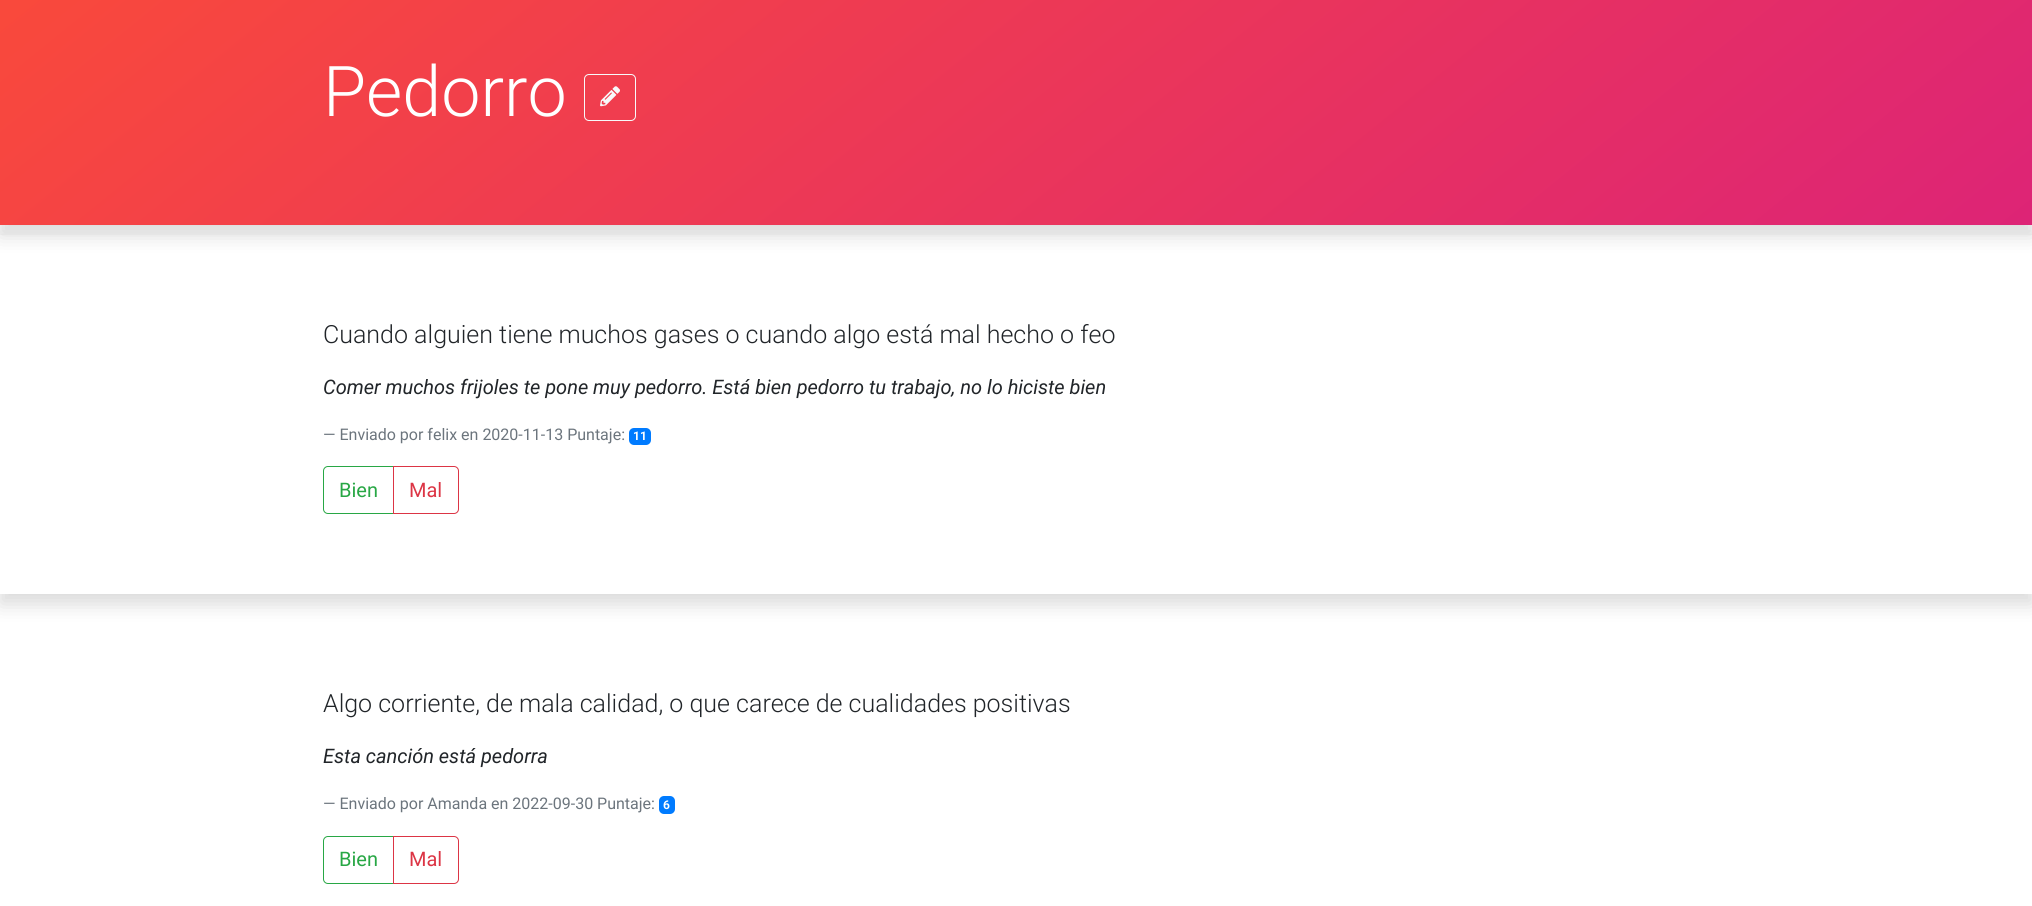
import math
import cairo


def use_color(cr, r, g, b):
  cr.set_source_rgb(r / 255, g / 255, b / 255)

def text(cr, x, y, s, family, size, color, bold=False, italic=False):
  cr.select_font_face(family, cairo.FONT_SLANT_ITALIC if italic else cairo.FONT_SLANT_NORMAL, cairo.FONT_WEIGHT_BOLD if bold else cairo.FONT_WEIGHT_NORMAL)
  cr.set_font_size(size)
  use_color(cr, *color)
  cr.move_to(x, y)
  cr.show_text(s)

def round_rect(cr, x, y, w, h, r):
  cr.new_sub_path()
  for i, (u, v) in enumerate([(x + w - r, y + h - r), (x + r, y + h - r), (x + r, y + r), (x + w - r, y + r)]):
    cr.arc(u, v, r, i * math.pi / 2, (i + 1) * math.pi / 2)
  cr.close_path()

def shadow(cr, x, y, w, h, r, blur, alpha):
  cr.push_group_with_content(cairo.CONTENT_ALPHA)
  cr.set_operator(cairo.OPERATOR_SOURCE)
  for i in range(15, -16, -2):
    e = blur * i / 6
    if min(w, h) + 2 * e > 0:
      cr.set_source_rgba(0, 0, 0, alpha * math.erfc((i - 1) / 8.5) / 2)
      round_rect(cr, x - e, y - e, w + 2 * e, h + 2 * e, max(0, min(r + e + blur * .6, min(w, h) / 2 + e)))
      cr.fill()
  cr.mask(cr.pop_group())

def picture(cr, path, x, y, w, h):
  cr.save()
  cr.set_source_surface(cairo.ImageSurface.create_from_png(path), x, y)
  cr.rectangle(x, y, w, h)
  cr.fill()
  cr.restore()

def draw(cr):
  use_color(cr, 255, 255, 255)
  cr.paint()
  use_color(cr, 0, 0, 0)
  shadow(cr, 0, -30, 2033, 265, 0, 10, 0.15)
  gradient = cairo.LinearGradient(461, -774, 1572, 598)
  gradient.add_color_stop_rgba(0, 1, 0.318, 0.184, 1)
  gradient.add_color_stop_rgba(1, 0.867, 0.141, 0.463, 1)
  cr.set_source(gradient)
  cr.rectangle(0, 0, 2032, 225)
  cr.fill()
  round_rect(cr, 584.5, 74.5, 51, 46, 4.5)
  use_color(cr, 248, 249, 250)
  cr.set_line_width(1)
  cr.stroke()
  picture(cr, "img_01.png", 600, 86, 20, 21)
  cr.save()
  cr.set_fill_rule(cairo.FILL_RULE_EVEN_ODD)
  cr.new_path()
  cr.move_to(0, 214)
  cr.line_to(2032, 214)
  cr.line_to(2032, 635)
  cr.line_to(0, 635)
  cr.close_path()
  cr.move_to(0, 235)
  cr.line_to(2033, 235)
  cr.line_to(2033, 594)
  cr.line_to(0, 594)
  cr.close_path()
  cr.clip()
  use_color(cr, 0, 0, 0)
  shadow(cr, 0, 245, 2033, 359, 0, 10, 0.15)
  cr.restore()
  use_color(cr, 0, 123, 255)
  round_rect(cr, 629, 428, 22, 17, 5)
  cr.fill()
  cr.new_path()
  cr.move_to(328, 466.5)
  cr.line_to(393.5, 466.5)
  cr.line_to(393.5, 513.5)
  cr.line_to(328, 513.5)
  cr.curve_to(325.5, 513.5, 323.5, 511.5, 323.5, 509)
  cr.line_to(323.5, 471)
  cr.curve_to(323.5, 468.5, 325.5, 466.5, 328, 466.5)
  cr.close_path()
  use_color(cr, 40, 167, 69)
  cr.stroke()
  cr.new_path()
  cr.move_to(393.5, 466.5)
  cr.line_to(454, 466.5)
  cr.curve_to(456.5, 466.5, 458.5, 468.5, 458.5, 471)
  cr.line_to(458.5, 509)
  cr.curve_to(458.5, 511.5, 456.5, 513.5, 454, 513.5)
  cr.line_to(393.5, 513.5)
  cr.close_path()
  use_color(cr, 220, 53, 69)
  cr.stroke()
  use_color(cr, 0, 123, 255)
  round_rect(cr, 659, 796, 16, 18, 5)
  cr.fill()
  cr.new_path()
  cr.move_to(328, 836.5)
  cr.line_to(393.5, 836.5)
  cr.line_to(393.5, 883.5)
  cr.line_to(328, 883.5)
  cr.curve_to(325.5, 883.5, 323.5, 881.5, 323.5, 879)
  cr.line_to(323.5, 841)
  cr.curve_to(323.5, 838.5, 325.5, 836.5, 328, 836.5)
  cr.close_path()
  use_color(cr, 40, 167, 69)
  cr.stroke()
  cr.new_path()
  cr.move_to(393.5, 836.5)
  cr.line_to(454, 836.5)
  cr.curve_to(456.5, 836.5, 458.5, 838.5, 458.5, 841)
  cr.line_to(458.5, 879)
  cr.curve_to(458.5, 881.5, 456.5, 883.5, 454, 883.5)
  cr.line_to(393.5, 883.5)
  cr.close_path()
  use_color(cr, 220, 53, 69)
  cr.stroke()
  text(cr, 323, 116, "Pedorro", "Roboto Light", 70, (255, 255, 255))
  text(cr, 323, 343, "Cuando alguien tiene muchos gases o cuando algo está mal hecho o feo", "Roboto Light", 25, (33, 37, 41))
  text(cr, 323, 394, "Comer muchos frijoles te pone muy pedorro. Está bien pedorro tu trabajo, no lo hiciste bien", "Roboto", 20, (33, 37, 41), italic=True)
  text(cr, 323, 440, "— Enviado por felix en 2020-11-13 Puntaje:", "Roboto", 16, (108, 117, 125))
  text(cr, 633, 440, "11", "Roboto", 12, (255, 255, 255), bold=True)
  text(cr, 339, 497, "Bien", "Roboto", 20, (40, 167, 69))
  text(cr, 409, 497, "Mal", "Roboto", 20, (220, 53, 69))
  text(cr, 323, 712, "Algo corriente, de mala calidad, o que carece de cualidades positivas", "Roboto Light", 25, (33, 37, 41))
  text(cr, 323, 763, "Esta canción está pedorra", "Roboto", 20, (33, 37, 41), italic=True)
  text(cr, 323, 809, "— Enviado por Amanda en 2022-09-30 Puntaje:", "Roboto", 16, (108, 117, 125))
  text(cr, 663, 809, "6", "Roboto", 12, (255, 255, 255), bold=True)
  text(cr, 339, 866, "Bien", "Roboto", 20, (40, 167, 69))
  text(cr, 409, 866, "Mal", "Roboto", 20, (220, 53, 69))


surface = cairo.ImageSurface(cairo.FORMAT_RGB24, 2032, 906)
cr = cairo.Context(surface)
options = cairo.FontOptions()
options.set_hint_metrics(cairo.HINT_METRICS_OFF)
options.set_hint_style(cairo.HINT_STYLE_NONE)
cr.set_font_options(options)
cr.set_miter_limit(4)
draw(cr)
surface.write_to_png("out.png")
